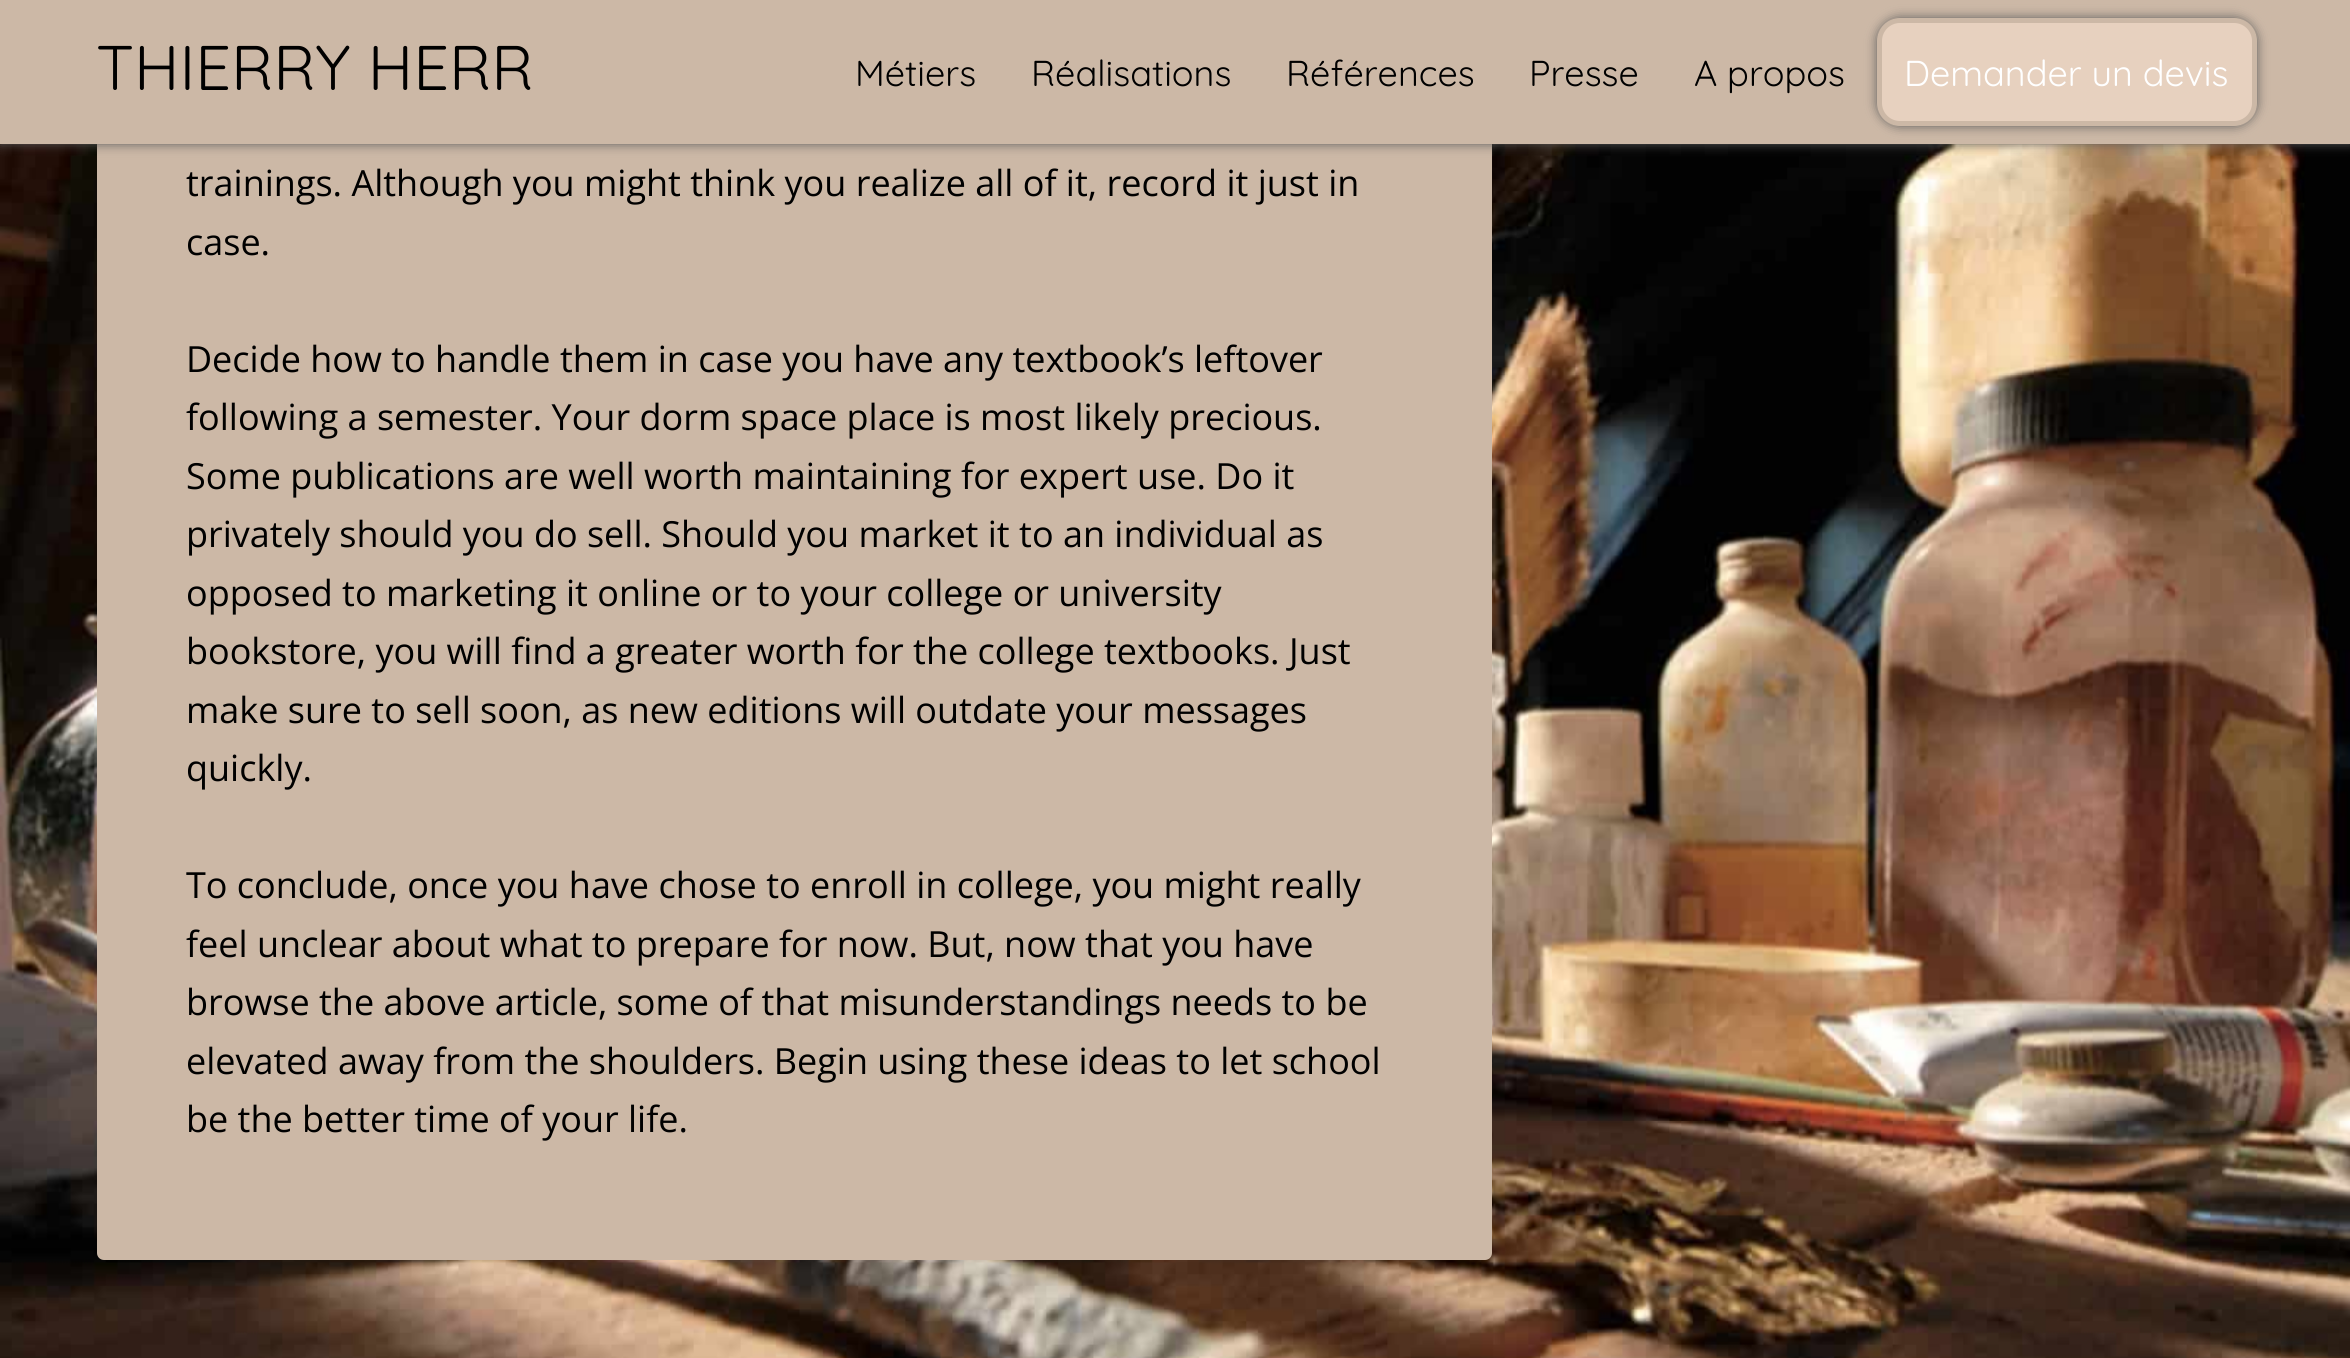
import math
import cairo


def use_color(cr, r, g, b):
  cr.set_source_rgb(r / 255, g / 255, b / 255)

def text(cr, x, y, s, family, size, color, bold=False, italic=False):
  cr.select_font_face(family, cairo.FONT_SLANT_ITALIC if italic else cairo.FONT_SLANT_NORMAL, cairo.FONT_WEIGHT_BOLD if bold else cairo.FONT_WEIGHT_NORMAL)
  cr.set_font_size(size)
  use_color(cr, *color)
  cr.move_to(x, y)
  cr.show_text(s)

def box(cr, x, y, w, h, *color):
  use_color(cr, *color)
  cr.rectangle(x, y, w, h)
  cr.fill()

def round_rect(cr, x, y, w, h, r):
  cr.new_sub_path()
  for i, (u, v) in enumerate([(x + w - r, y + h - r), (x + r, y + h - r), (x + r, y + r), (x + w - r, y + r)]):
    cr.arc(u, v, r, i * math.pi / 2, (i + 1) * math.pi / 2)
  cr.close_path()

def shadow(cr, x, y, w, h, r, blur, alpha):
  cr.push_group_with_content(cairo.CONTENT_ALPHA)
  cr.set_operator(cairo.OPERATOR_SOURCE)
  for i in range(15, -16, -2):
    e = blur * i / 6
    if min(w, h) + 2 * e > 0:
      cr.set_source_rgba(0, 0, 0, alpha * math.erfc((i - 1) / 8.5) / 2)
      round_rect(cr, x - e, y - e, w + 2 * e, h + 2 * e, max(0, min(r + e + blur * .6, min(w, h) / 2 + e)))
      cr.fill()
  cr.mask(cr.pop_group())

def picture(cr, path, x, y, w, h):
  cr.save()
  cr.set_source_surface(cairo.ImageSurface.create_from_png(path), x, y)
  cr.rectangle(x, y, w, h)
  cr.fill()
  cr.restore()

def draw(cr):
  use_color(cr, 255, 255, 255)
  cr.paint()
  picture(cr, "img_01.png", 0, 144, 2350, 1214)
  use_color(cr, 204, 184, 166)
  round_rect(cr, 97, -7, 1395, 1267, 7)
  cr.fill()
  use_color(cr, 92, 92, 92)
  shadow(cr, 0, 0, 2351, 144, 0, 5.5, 1)
  box(cr, 0, 0, 2350, 144, 204, 184, 166)
  use_color(cr, 92, 92, 92)
  shadow(cr, 1877, 18, 380, 108, 23, 5.5, 1)
  use_color(cr, 231, 209, 191)
  round_rect(cr, 1879.5, 20.5, 375, 103, 20.5)
  cr.fill_preserve()
  use_color(cr, 204, 184, 166)
  cr.set_line_width(5)
  cr.stroke()
  text(cr, 96, 90, "THIERRY HERR", "Quicksand Light", 63, (0, 0, 0))
  text(cr, 855, 86, "Métiers", "Quicksand Light", 36, (0, 0, 0))
  text(cr, 1031, 86, "Réalisations", "Quicksand Light", 36, (0, 0, 0))
  text(cr, 1286, 86, "Références", "Quicksand Light", 36, (0, 0, 0))
  text(cr, 1529, 86, "Presse", "Quicksand Light", 36, (0, 0, 0))
  text(cr, 1694, 86, "A propos", "Quicksand Light", 36, (0, 0, 0))
  text(cr, 1904, 86, "Demander un devis", "Quicksand Light", 36, (255, 255, 255))
  text(cr, 186, 196, "trainings. Although you might think you realize all of it, record it just in", "Open Sans", 36, (0, 0, 0))
  text(cr, 186, 255, "case.", "Open Sans", 36, (0, 0, 0))
  text(cr, 186, 372, "Decide how to handle them in case you have any textbook’s leftover", "Open Sans", 36, (0, 0, 0))
  text(cr, 186, 430, "following a semester. Your dorm space place is most likely precious.", "Open Sans", 36, (0, 0, 0))
  text(cr, 186, 489, "Some publications are well worth maintaining for expert use. Do it", "Open Sans", 36, (0, 0, 0))
  text(cr, 186, 547, "privately should you do sell. Should you market it to an individual as", "Open Sans", 36, (0, 0, 0))
  text(cr, 186, 606, "opposed to marketing it online or to your college or university", "Open Sans", 36, (0, 0, 0))
  text(cr, 186, 664, "bookstore, you will find a greater worth for the college textbooks. Just", "Open Sans", 36, (0, 0, 0))
  text(cr, 186, 723, "make sure to sell soon, as new editions will outdate your messages", "Open Sans", 36, (0, 0, 0))
  text(cr, 186, 781, "quickly.", "Open Sans", 36, (0, 0, 0))
  text(cr, 186, 898, "To conclude, once you have chose to enroll in college, you might really", "Open Sans", 36, (0, 0, 0))
  text(cr, 186, 957, "feel unclear about what to prepare for now. But, now that you have", "Open Sans", 36, (0, 0, 0))
  text(cr, 186, 1015, "browse the above article, some of that misunderstandings needs to be", "Open Sans", 36, (0, 0, 0))
  text(cr, 186, 1074, "elevated away from the shoulders. Begin using these ideas to let school", "Open Sans", 36, (0, 0, 0))
  text(cr, 186, 1132, "be the better time of your life.", "Open Sans", 36, (0, 0, 0))


surface = cairo.ImageSurface(cairo.FORMAT_RGB24, 2350, 1358)
cr = cairo.Context(surface)
options = cairo.FontOptions()
options.set_hint_metrics(cairo.HINT_METRICS_OFF)
options.set_hint_style(cairo.HINT_STYLE_NONE)
cr.set_font_options(options)
cr.set_miter_limit(4)
draw(cr)
surface.write_to_png("out.png")
